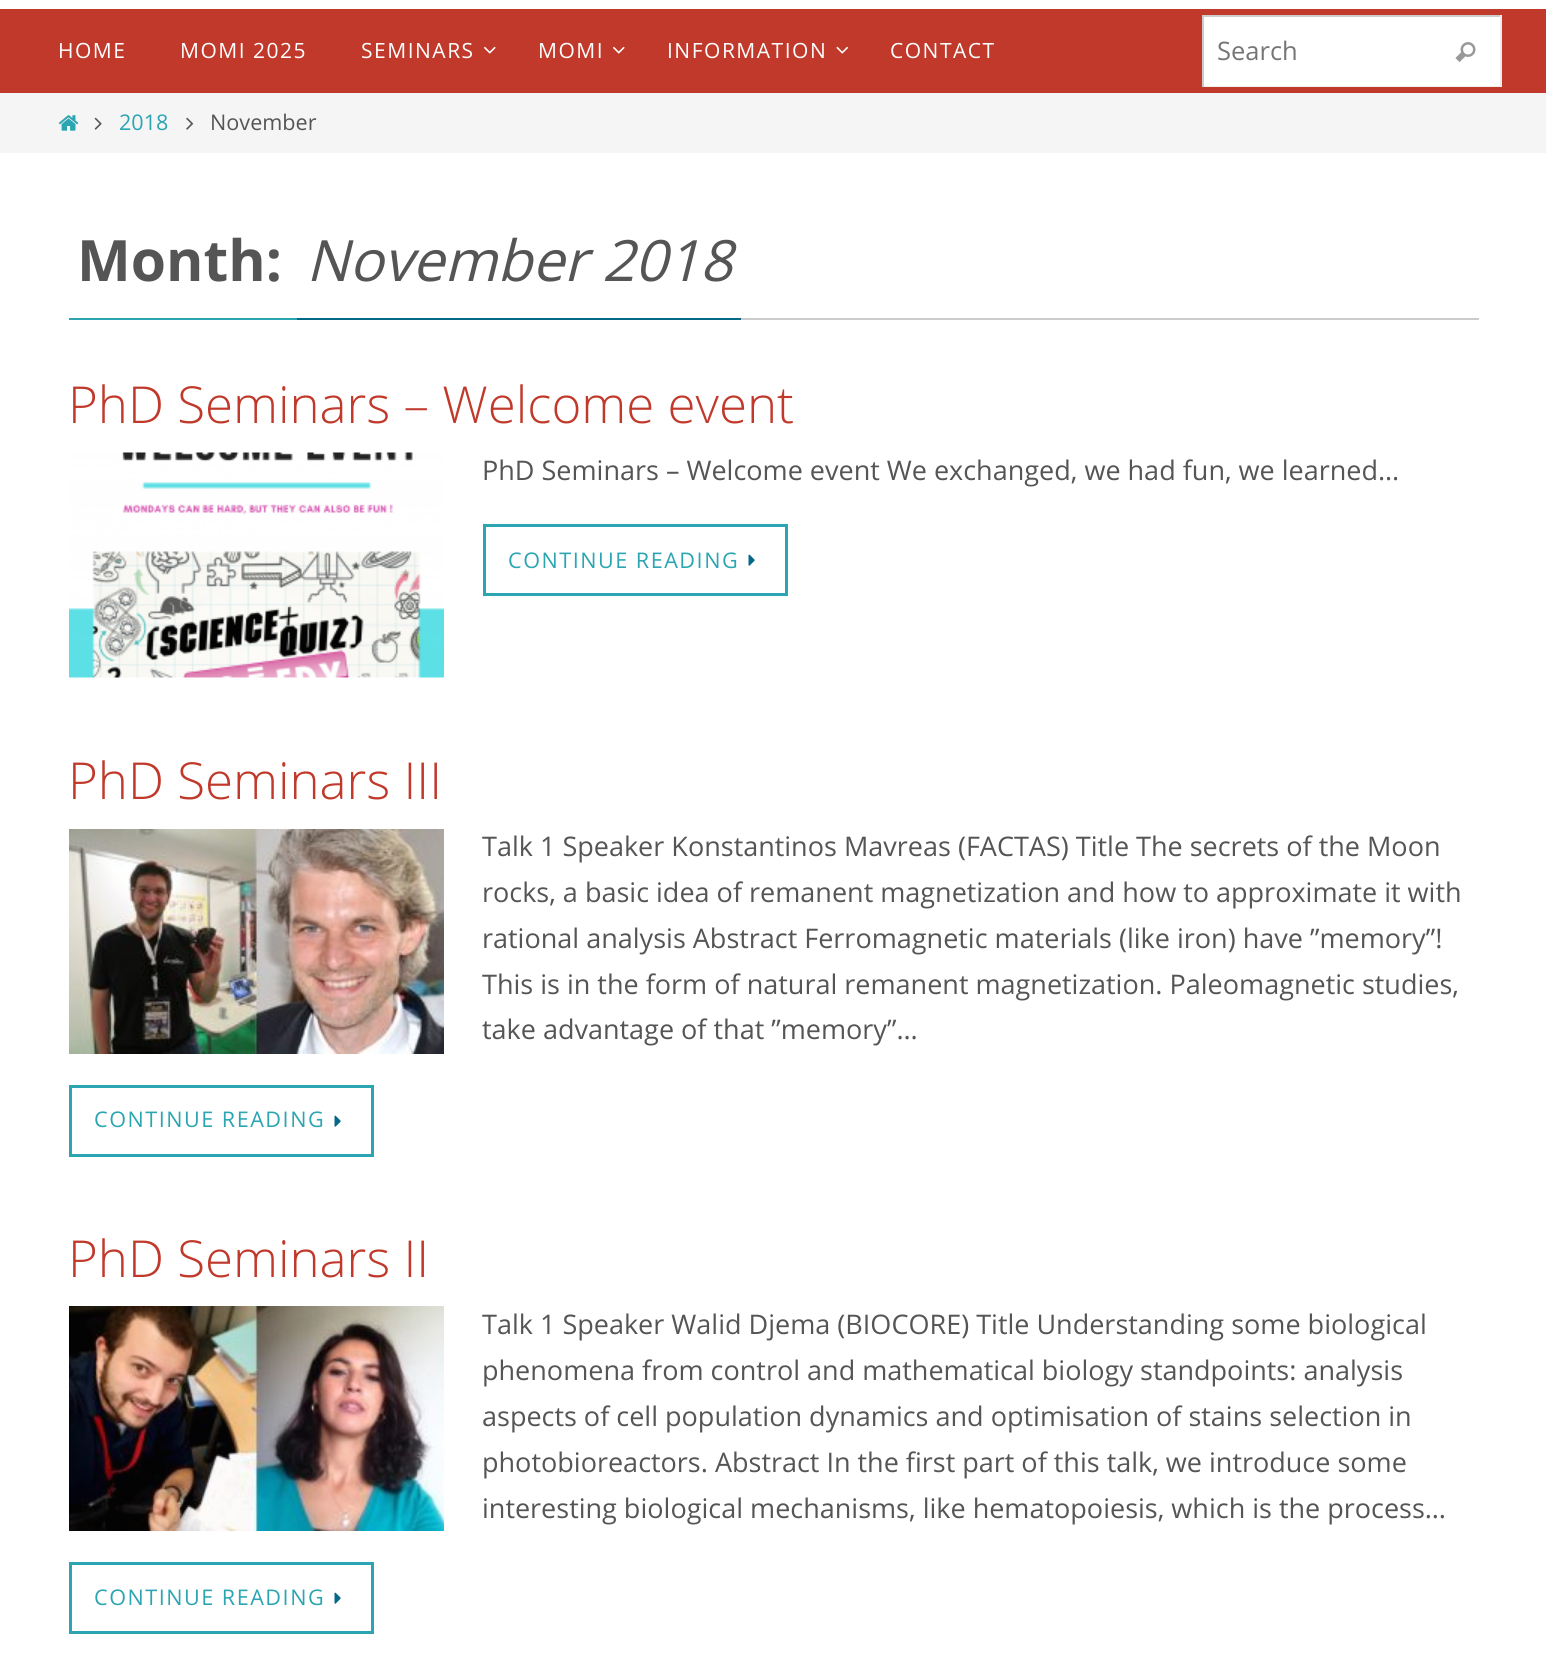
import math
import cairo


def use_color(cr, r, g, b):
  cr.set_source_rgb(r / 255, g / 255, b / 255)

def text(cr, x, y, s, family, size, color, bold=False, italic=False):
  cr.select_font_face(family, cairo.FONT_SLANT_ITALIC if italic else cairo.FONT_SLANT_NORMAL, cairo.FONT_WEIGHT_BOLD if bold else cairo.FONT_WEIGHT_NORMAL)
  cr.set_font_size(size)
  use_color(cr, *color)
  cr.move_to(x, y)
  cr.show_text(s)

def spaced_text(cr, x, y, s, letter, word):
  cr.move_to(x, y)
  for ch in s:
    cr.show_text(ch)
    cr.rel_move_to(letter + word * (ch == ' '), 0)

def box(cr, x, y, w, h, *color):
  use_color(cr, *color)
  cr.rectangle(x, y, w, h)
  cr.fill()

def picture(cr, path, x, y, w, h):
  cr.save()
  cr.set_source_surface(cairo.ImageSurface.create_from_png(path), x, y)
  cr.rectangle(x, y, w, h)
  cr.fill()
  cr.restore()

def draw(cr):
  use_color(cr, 255, 255, 255)
  cr.paint()
  box(cr, 0, 9, 1546, 84, 192, 57, 43)
  picture(cr, "img_01.png", 484, 46, 12, 8)
  picture(cr, "img_01.png", 613, 46, 12, 8)
  picture(cr, "img_02.png", 836, 46, 13, 8)
  box(cr, 1204, 17, 296, 69, 255, 255, 255)
  box(cr, 1202, 15, 300, 2, 204, 204, 204)
  box(cr, 1500, 15, 2, 72, 238, 238, 238)
  box(cr, 1202, 86, 300, 1, 238, 238, 238)
  box(cr, 1202, 15, 2, 72, 204, 204, 204)
  picture(cr, "img_03.png", 1455, 42, 21, 20)
  box(cr, 0, 93, 1546, 60, 245, 245, 245)
  picture(cr, "img_04.png", 58, 115, 21, 16)
  picture(cr, "img_05.png", 94, 117, 8, 13)
  picture(cr, "img_06.png", 186, 117, 8, 13)
  box(cr, 741, 318, 738, 2, 204, 204, 204)
  box(cr, 69, 318, 228, 2, 43, 165, 178)
  box(cr, 297, 318, 444, 2, 5, 104, 135)
  picture(cr, "img_07.png", 69, 452, 375, 226)
  cr.rectangle(484.5, 525.5, 302, 69)
  use_color(cr, 43, 165, 178)
  cr.set_line_width(3)
  cr.stroke()
  picture(cr, "img_08.png", 748, 554, 7, 12)
  picture(cr, "img_09.png", 69, 829, 375, 225)
  cr.rectangle(70.5, 1086.5, 302, 69)
  cr.stroke()
  picture(cr, "img_08.png", 334, 1115, 7, 12)
  picture(cr, "img_10.png", 69, 1306, 375, 225)
  cr.rectangle(70.5, 1563.5, 302, 69)
  cr.stroke()
  picture(cr, "img_08.png", 334, 1592, 7, 12)
  cr.select_font_face("Open Sans")
  cr.set_font_size(21)
  use_color(cr, 255, 255, 255)
  spaced_text(cr, 58, 58, "HOME", 1.5, 0)
  spaced_text(cr, 180, 58, "MOMI 2025", 1.5, 0)
  spaced_text(cr, 361, 58, "SEMINARS", 1.5, 0)
  spaced_text(cr, 538, 58, "MOMI", 1.5, 0)
  spaced_text(cr, 667, 58, "INFORMATION", 1.5, 0)
  spaced_text(cr, 890, 58, "CONTACT", 1.5, 0)
  text(cr, 1217, 60, "Search", "Open Sans", 25.5, (117, 117, 117))
  text(cr, 119, 130, "2018", "Open Sans", 21.6, (43, 165, 178))
  text(cr, 210, 130, "November", "Open Sans", 21.6, (85, 85, 85))
  text(cr, 77, 281, "Month:", "Open Sans", 57, (85, 85, 85), bold=True)
  text(cr, 306, 281, "November 2018", "Open Sans", 57, (85, 85, 85), italic=True)
  text(cr, 68, 423, "PhD Seminars – Welcome event", "Open Sans Light", 51, (192, 57, 43))
  text(cr, 482, 480, "PhD Seminars – Welcome event We exchanged, we had fun, we learned…", "Open Sans", 27, (85, 85, 85))
  cr.set_font_size(21.6)
  use_color(cr, 43, 165, 178)
  spaced_text(cr, 508, 568, "CONTINUE READING", 1.5, 0)
  text(cr, 68, 799, "PhD Seminars III", "Open Sans Light", 51, (192, 57, 43))
  text(cr, 482, 856, "Talk 1 Speaker Konstantinos Mavreas (FACTAS) Title The secrets of the Moon", "Open Sans", 27, (85, 85, 85))
  text(cr, 482, 902, "rocks, a basic idea of remanent magnetization and how to approximate it with", "Open Sans", 27, (85, 85, 85))
  text(cr, 482, 948, "rational analysis Abstract Ferromagnetic materials (like iron) have ”memory”!", "Open Sans", 27, (85, 85, 85))
  text(cr, 482, 994, "This is in the form of natural remanent magnetization. Paleomagnetic studies,", "Open Sans", 27, (85, 85, 85))
  text(cr, 482, 1039, "take advantage of that ”memory”…", "Open Sans", 27, (85, 85, 85))
  cr.set_font_size(21.6)
  use_color(cr, 43, 165, 178)
  spaced_text(cr, 94, 1127, "CONTINUE READING", 1.5, 0)
  text(cr, 68, 1277, "PhD Seminars II", "Open Sans Light", 51, (192, 57, 43))
  text(cr, 482, 1334, "Talk 1 Speaker Walid Djema (BIOCORE) Title Understanding some biological", "Open Sans", 27, (85, 85, 85))
  text(cr, 482, 1380, "phenomena from control and mathematical biology standpoints: analysis", "Open Sans", 27, (85, 85, 85))
  text(cr, 482, 1426, "aspects of cell population dynamics and optimisation of stains selection in", "Open Sans", 27, (85, 85, 85))
  text(cr, 482, 1472, "photobioreactors. Abstract In the first part of this talk, we introduce some", "Open Sans", 27, (85, 85, 85))
  text(cr, 482, 1518, "interesting biological mechanisms, like hematopoiesis, which is the process…", "Open Sans", 27, (85, 85, 85))
  cr.set_font_size(21.6)
  use_color(cr, 43, 165, 178)
  spaced_text(cr, 94, 1605, "CONTINUE READING", 1.5, 0)


surface = cairo.ImageSurface(cairo.FORMAT_RGB24, 1546, 1674)
cr = cairo.Context(surface)
options = cairo.FontOptions()
options.set_hint_metrics(cairo.HINT_METRICS_OFF)
options.set_hint_style(cairo.HINT_STYLE_NONE)
cr.set_font_options(options)
cr.set_miter_limit(4)
draw(cr)
surface.write_to_png("out.png")
